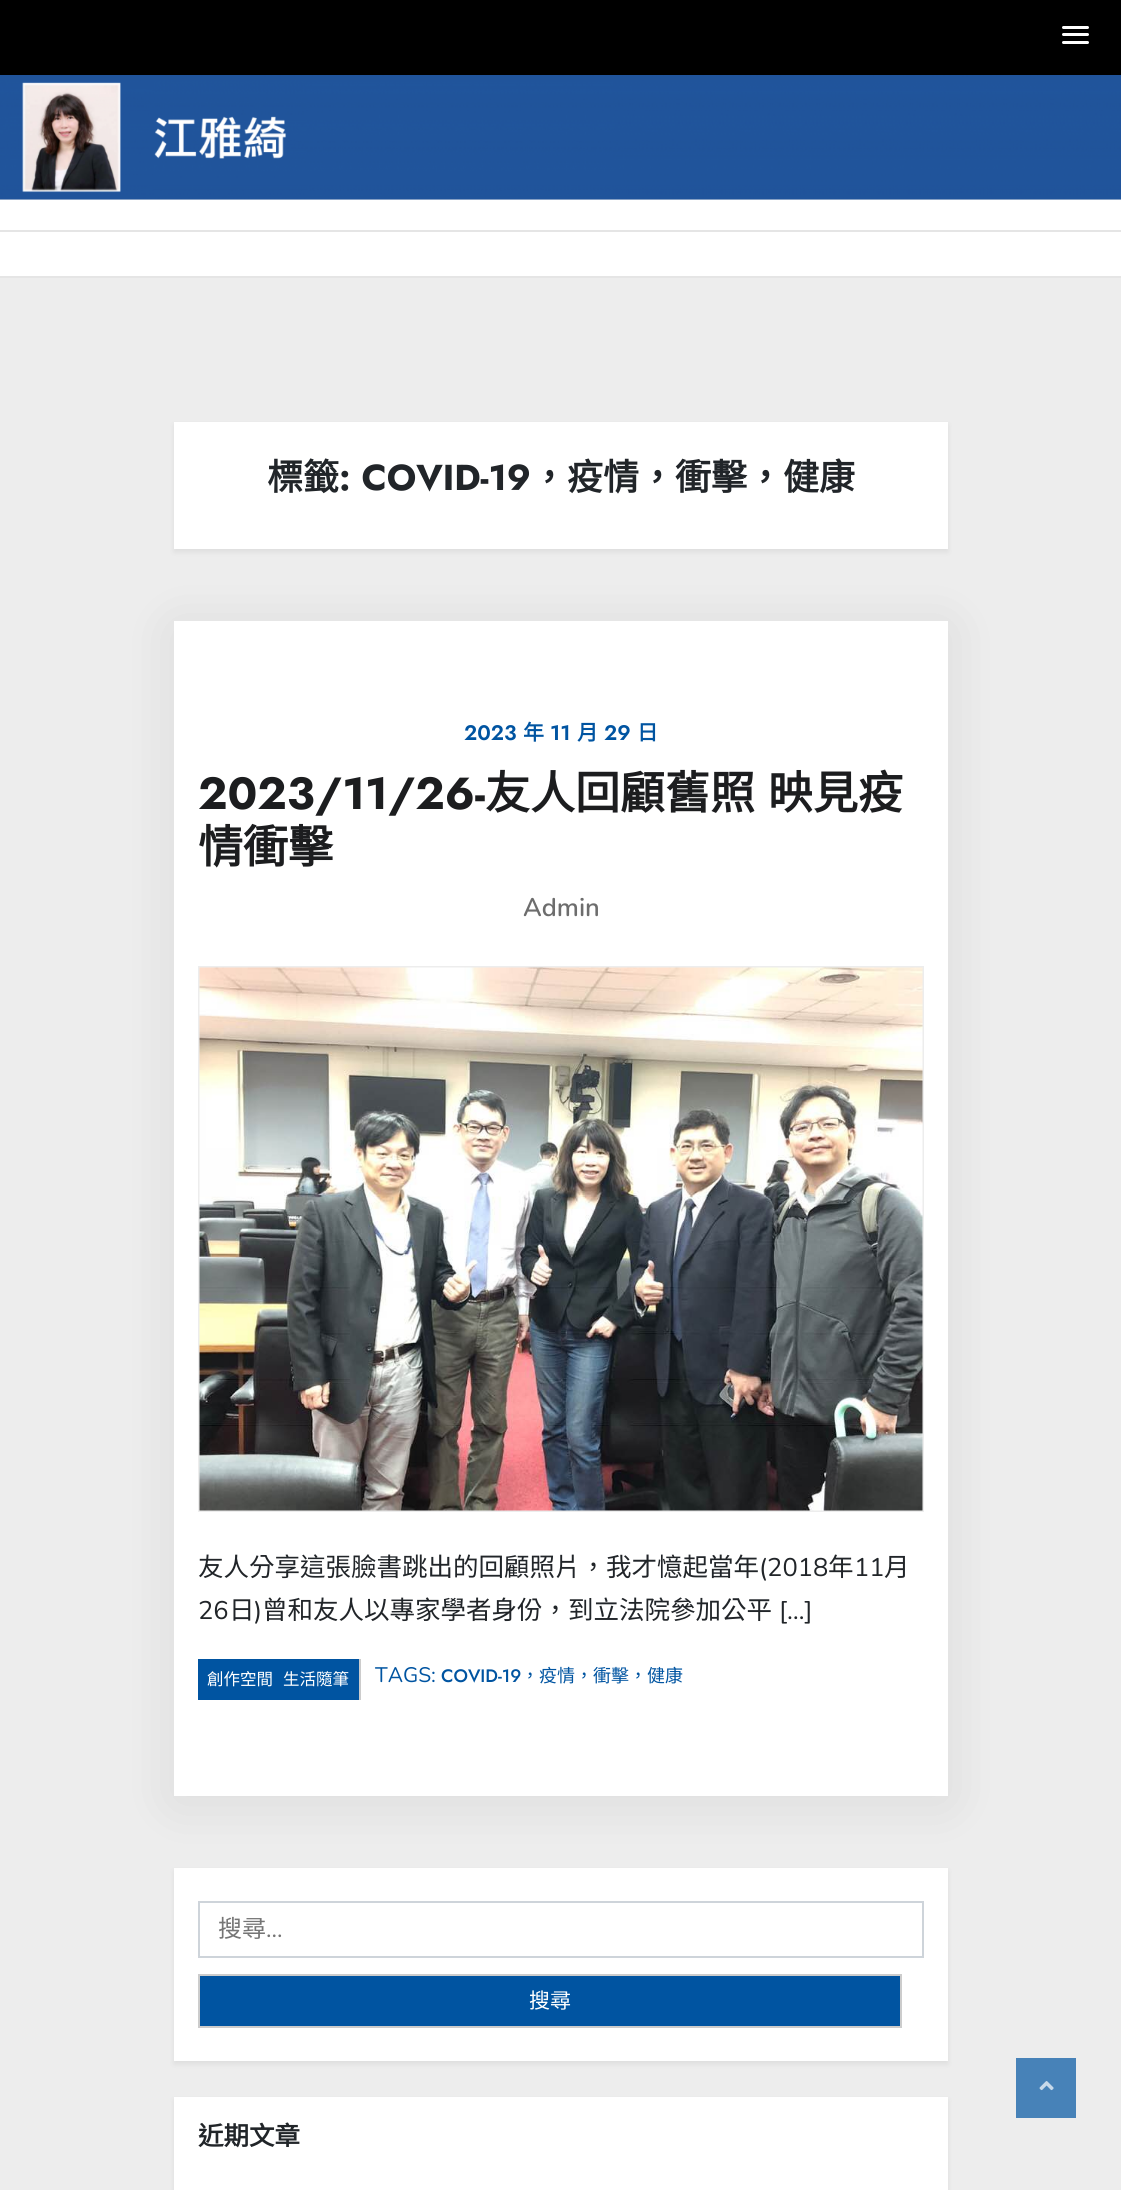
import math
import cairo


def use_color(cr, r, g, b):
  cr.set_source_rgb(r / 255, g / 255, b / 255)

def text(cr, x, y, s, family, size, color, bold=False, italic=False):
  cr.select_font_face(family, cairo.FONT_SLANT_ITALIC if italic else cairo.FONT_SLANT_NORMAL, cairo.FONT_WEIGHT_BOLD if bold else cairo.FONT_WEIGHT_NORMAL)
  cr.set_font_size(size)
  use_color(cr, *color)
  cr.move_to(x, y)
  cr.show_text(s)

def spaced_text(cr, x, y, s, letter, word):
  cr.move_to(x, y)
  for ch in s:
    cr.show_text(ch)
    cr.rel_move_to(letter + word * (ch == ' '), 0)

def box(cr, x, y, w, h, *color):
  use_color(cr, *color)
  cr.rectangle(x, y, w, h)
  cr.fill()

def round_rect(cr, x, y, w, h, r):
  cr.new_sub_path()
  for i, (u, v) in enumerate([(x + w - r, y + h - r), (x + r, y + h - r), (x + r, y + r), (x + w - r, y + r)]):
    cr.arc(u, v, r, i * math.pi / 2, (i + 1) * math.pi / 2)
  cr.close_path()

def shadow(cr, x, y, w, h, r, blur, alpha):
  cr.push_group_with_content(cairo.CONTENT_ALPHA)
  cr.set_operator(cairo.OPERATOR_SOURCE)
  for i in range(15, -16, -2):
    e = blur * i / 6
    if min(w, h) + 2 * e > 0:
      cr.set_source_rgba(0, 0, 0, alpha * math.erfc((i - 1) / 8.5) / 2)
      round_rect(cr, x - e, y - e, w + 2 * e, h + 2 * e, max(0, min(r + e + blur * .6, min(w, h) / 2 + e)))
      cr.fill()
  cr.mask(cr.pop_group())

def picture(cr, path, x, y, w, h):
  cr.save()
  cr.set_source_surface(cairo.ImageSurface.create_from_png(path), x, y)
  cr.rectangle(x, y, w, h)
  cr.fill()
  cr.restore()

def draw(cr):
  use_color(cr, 237, 237, 237)
  cr.paint()
  box(cr, 0, 0, 1121, 75, 0, 0, 0)
  use_color(cr, 255, 255, 255)
  round_rect(cr, 1062, 26, 27, 3, 1.5)
  cr.fill()
  round_rect(cr, 1062, 33, 27, 3, 1.5)
  cr.fill()
  round_rect(cr, 1062, 41, 27, 3, 1.5)
  cr.fill()
  picture(cr, "img_01.png", 0, 75, 1121, 125)
  box(cr, 0, 200, 1121, 30, 255, 255, 255)
  box(cr, 0, 232, 1121, 44, 255, 255, 255)
  box(cr, 0, 230, 1121, 2, 229, 229, 229)
  box(cr, 0, 276, 1121, 2, 229, 229, 229)
  use_color(cr, 0, 0, 0)
  shadow(cr, 174, 425, 774, 127, 0, 3, 0.07)
  box(cr, 174, 422, 774, 127, 255, 255, 255)
  use_color(cr, 0, 0, 0)
  shadow(cr, 174, 627, 774, 1175, 0, 28, 0.08)
  box(cr, 174, 621, 774, 1175, 255, 255, 255)
  cr.rectangle(199, 967, 724, 544)
  use_color(cr, 237, 237, 237)
  cr.stroke()
  picture(cr, "img_02.png", 199, 967, 724, 544)
  box(cr, 198, 1659, 161, 41, 0, 84, 161)
  box(cr, 359, 1659, 2, 41, 204, 204, 204)
  use_color(cr, 0, 0, 0)
  shadow(cr, 174, 1871, 774, 193, 0, 3, 0.07)
  box(cr, 174, 1868, 774, 193, 255, 255, 255)
  cr.rectangle(199, 1902, 724, 55)
  use_color(cr, 206, 212, 218)
  cr.stroke()
  use_color(cr, 0, 84, 161)
  cr.rectangle(199, 1975, 702, 52)
  cr.fill_preserve()
  use_color(cr, 204, 204, 204)
  cr.stroke()
  use_color(cr, 0, 0, 0)
  shadow(cr, 174, 2100, 774, 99, 0, 3, 0.07)
  box(cr, 174, 2097, 774, 93, 255, 255, 255)
  box(cr, 1016, 2058, 60, 60, 71, 130, 184)
  picture(cr, "img_03.png", 1039, 2081, 15, 10)
  text(cr, 267, 490, "標籤", "Noto Sans CJK TC", 36, (33, 37, 41), bold=True)
  text(cr, 339, 490, ": COVID-19", "Jost", 36, (33, 37, 41), bold=True)
  text(cr, 531, 490, "，疫情，衝擊，健康", "Noto Sans CJK TC", 36, (33, 37, 41), bold=True)
  text(cr, 464, 740, "2023", "Jost SemiBold", 21, (0, 84, 161))
  text(cr, 523, 740, "年", "Noto Sans CJK TC", 21, (0, 84, 161), bold=True)
  text(cr, 550, 740, "11", "Jost SemiBold", 21, (0, 84, 161))
  text(cr, 577, 740, "月", "Noto Sans CJK TC", 21, (0, 84, 161), bold=True)
  text(cr, 604, 740, "29", "Jost SemiBold", 21, (0, 84, 161))
  text(cr, 637, 740, "日", "Noto Sans CJK TC", 21, (0, 84, 161), bold=True)
  text(cr, 198, 809, "2023/11/26-", "Jost", 45, (28, 29, 31), bold=True)
  cr.select_font_face("Noto Sans CJK TC", cairo.FONT_SLANT_NORMAL, cairo.FONT_WEIGHT_BOLD)
  spaced_text(cr, 485, 809, "友人回顧舊照 映見疫", 0, 3)
  text(cr, 198, 863, "情衝擊", "Noto Sans CJK TC", 45, (28, 29, 31), bold=True)
  text(cr, 523, 916, "Admin", "Nunito SemiBold", 25.5, (109, 109, 109))
  text(cr, 198, 1576, "友人分享這張臉書跳出的回顧照片，我才憶起當年", "Noto Sans CJK TC", 25.5, (33, 37, 41))
  text(cr, 759, 1576, "(2018", "Nunito", 25.5, (33, 37, 41))
  text(cr, 828, 1576, "年", "Noto Sans CJK TC", 25.5, (33, 37, 41))
  text(cr, 854, 1576, "11", "Nunito", 25.5, (33, 37, 41))
  text(cr, 884, 1576, "月", "Noto Sans CJK TC", 25.5, (33, 37, 41))
  text(cr, 198, 1619, "26", "Nunito", 25.5, (33, 37, 41))
  text(cr, 229, 1619, "日", "Noto Sans CJK TC", 25.5, (33, 37, 41))
  text(cr, 254, 1619, ")", "Nunito", 25.5, (33, 37, 41))
  text(cr, 262, 1619, "曾和友人以專家學者身份，到立法院參加公平", "Noto Sans CJK TC", 25.5, (33, 37, 41))
  text(cr, 779, 1619, "[…]", "Nunito", 25.5, (33, 37, 41))
  text(cr, 207, 1685, "創作空間", "Noto Sans CJK TC", 16.5, (255, 255, 255))
  text(cr, 283, 1685, "生活隨筆", "Noto Sans CJK TC", 16.5, (255, 255, 255))
  text(cr, 375, 1682, "TAGS:", "Nunito", 21, (0, 84, 161))
  text(cr, 441, 1682, "COVID-19", "Jost Medium", 18, (0, 84, 161))
  text(cr, 521, 1682, "，疫情，衝擊，健康", "Noto Sans CJK TC", 18, (0, 84, 161))
  text(cr, 218, 1937, "搜尋", "Noto Sans CJK TC", 24, (117, 117, 117))
  text(cr, 266, 1937, "...", "Nunito", 24, (117, 117, 117))
  text(cr, 529, 2008, "搜尋", "Noto Sans CJK TC", 21, (255, 255, 255))
  text(cr, 198, 2145, "近期文章", "Noto Sans CJK TC", 25.5, (33, 37, 41), bold=True)


surface = cairo.ImageSurface(cairo.FORMAT_RGB24, 1121, 2190)
cr = cairo.Context(surface)
options = cairo.FontOptions()
options.set_hint_metrics(cairo.HINT_METRICS_OFF)
options.set_hint_style(cairo.HINT_STYLE_NONE)
cr.set_font_options(options)
cr.set_miter_limit(4)
draw(cr)
surface.write_to_png("out.png")
